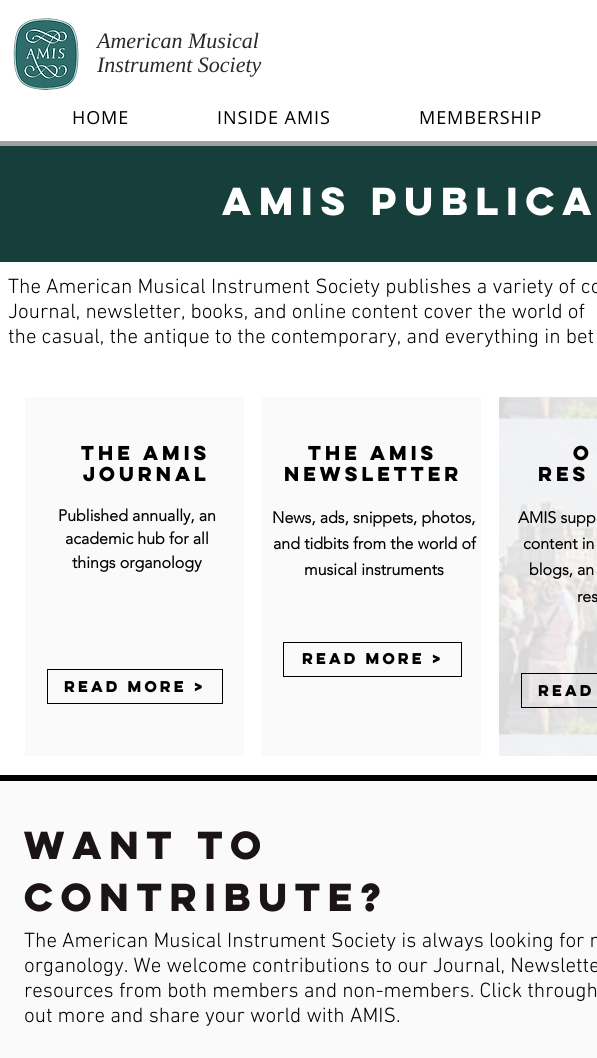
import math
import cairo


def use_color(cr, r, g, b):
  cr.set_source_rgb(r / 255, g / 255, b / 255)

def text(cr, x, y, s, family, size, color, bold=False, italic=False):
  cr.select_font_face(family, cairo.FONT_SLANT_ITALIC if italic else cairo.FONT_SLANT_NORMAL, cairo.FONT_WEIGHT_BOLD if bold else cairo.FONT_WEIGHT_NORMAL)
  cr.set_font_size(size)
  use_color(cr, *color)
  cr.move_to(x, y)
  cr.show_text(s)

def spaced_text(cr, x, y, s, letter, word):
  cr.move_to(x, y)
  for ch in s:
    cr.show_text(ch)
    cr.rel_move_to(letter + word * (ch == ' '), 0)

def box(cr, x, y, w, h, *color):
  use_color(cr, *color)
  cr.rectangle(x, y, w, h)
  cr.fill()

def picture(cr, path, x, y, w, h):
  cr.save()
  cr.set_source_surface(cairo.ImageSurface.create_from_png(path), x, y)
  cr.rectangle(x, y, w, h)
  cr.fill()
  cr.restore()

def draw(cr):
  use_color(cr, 255, 255, 255)
  cr.paint()
  picture(cr, "img_01.png", 13, 18, 66, 72)
  box(cr, 0, 141, 597, 5, 160, 160, 159)
  box(cr, 0, 146, 597, 116, 22, 62, 58)
  box(cr, 25, 397, 219, 359, 250, 250, 250)
  cr.rectangle(47.5, 669.5, 175, 34)
  use_color(cr, 0, 0, 0)
  cr.set_line_width(1)
  cr.stroke()
  box(cr, 262, 397, 219, 359, 250, 250, 250)
  cr.rectangle(283.5, 642.5, 178, 34)
  use_color(cr, 0, 0, 0)
  cr.stroke()
  box(cr, 499, 397, 98, 359, 250, 250, 250)
  picture(cr, "img_02.png", 499, 397, 98, 359)
  cr.rectangle(521.5, 673.5, 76, 34)
  use_color(cr, 0, 0, 0)
  cr.stroke()
  box(cr, 0, 775, 597, 6, 0, 0, 0)
  box(cr, 0, 781, 597, 277, 250, 250, 250)
  text(cr, 97, 48, "American Musical", "Liberation Serif", 22, (41, 41, 41), italic=True)
  text(cr, 97, 72, "Instrument Society", "Liberation Serif", 22, (41, 41, 41), italic=True)
  cr.select_font_face("Open Sans")
  cr.set_font_size(18)
  use_color(cr, 0, 0, 0)
  spaced_text(cr, 72, 124, "HOME", 0.9, 0)
  spaced_text(cr, 217, 124, "INSIDE AMIS", 0.9, 0)
  spaced_text(cr, 419, 124, "MEMBERSHIP", 0.9, 0)
  text(cr, 222, 215, "AMIS Publica", "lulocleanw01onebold", 35, (255, 255, 255), bold=True)
  text(cr, 8, 293, "The American Musical Instrument Society publishes a variety of co", "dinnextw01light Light", 21, (0, 0, 0))
  text(cr, 8, 318, "Journal, newsletter, books, and online content cover the world of", "dinnextw01light Light", 21, (0, 0, 0))
  text(cr, 8, 343, "the casual, the antique to the contemporary, and everything in bet", "dinnextw01light Light", 21, (0, 0, 0))
  text(cr, 81, 460, "The AMIS", "lulocleanw01onebold", 18, (0, 0, 0), bold=True)
  text(cr, 83, 481, "Journal", "lulocleanw01onebold", 18, (0, 0, 0), bold=True)
  text(cr, 58, 521, "Published annually, an", "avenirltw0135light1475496", 16, (0, 0, 0), bold=True)
  text(cr, 65, 544, "academic hub for all", "avenirltw0135light1475496", 16, (0, 0, 0), bold=True)
  text(cr, 72, 568, "things organology", "avenirltw0135light1475496", 16, (0, 0, 0), bold=True)
  text(cr, 64, 692, "Read More >", "lulocleanw01onebold", 14, (0, 0, 0), bold=True)
  text(cr, 308, 460, "The AMIS", "lulocleanw01onebold", 18, (0, 0, 0), bold=True)
  text(cr, 284, 481, "Newsletter", "lulocleanw01onebold", 18, (0, 0, 0), bold=True)
  text(cr, 272, 523, "News, ads, snippets, photos,", "avenirltw0135light1475496", 16, (0, 0, 0), bold=True)
  text(cr, 273, 549, "and tidbits from the world of", "avenirltw0135light1475496", 16, (0, 0, 0), bold=True)
  text(cr, 304, 575, "musical instruments", "avenirltw0135light1475496", 16, (0, 0, 0), bold=True)
  text(cr, 302, 664, "Read More >", "lulocleanw01onebold", 14, (0, 0, 0), bold=True)
  text(cr, 573, 460, "O", "lulocleanw01onebold", 18, (0, 0, 0), bold=True)
  text(cr, 538, 481, "Res", "lulocleanw01onebold", 18, (0, 0, 0), bold=True)
  text(cr, 518, 523, "AMIS supp", "avenirltw0135light1475496", 16, (0, 0, 0), bold=True)
  text(cr, 523, 549, "content in", "avenirltw0135light1475496", 16, (0, 0, 0), bold=True)
  text(cr, 529, 575, "blogs, an", "avenirltw0135light1475496", 16, (0, 0, 0), bold=True)
  text(cr, 577, 602, "res", "avenirltw0135light1475496", 16, (0, 0, 0), bold=True)
  text(cr, 538, 696, "Read", "lulocleanw01onebold", 14, (0, 0, 0), bold=True)
  text(cr, 24, 859, "Want to", "lulocleanw01onebold", 35, (26, 20, 20), bold=True)
  text(cr, 24, 911, "Contribute?", "lulocleanw01onebold", 35, (26, 20, 20), bold=True)
  text(cr, 24, 947, "The American Musical Instrument Society is always looking for n", "dinnextw01light Light", 21, (0, 0, 0))
  text(cr, 24, 972, "organology. We welcome contributions to our Journal, Newslette", "dinnextw01light Light", 21, (0, 0, 0))
  text(cr, 24, 997, "resources from both members and non-members. Click through", "dinnextw01light Light", 21, (0, 0, 0))
  text(cr, 24, 1022, "out more and share your world with AMIS.", "dinnextw01light Light", 21, (0, 0, 0))


surface = cairo.ImageSurface(cairo.FORMAT_RGB24, 597, 1058)
cr = cairo.Context(surface)
options = cairo.FontOptions()
options.set_hint_metrics(cairo.HINT_METRICS_OFF)
options.set_hint_style(cairo.HINT_STYLE_NONE)
cr.set_font_options(options)
cr.set_miter_limit(4)
draw(cr)
surface.write_to_png("out.png")
